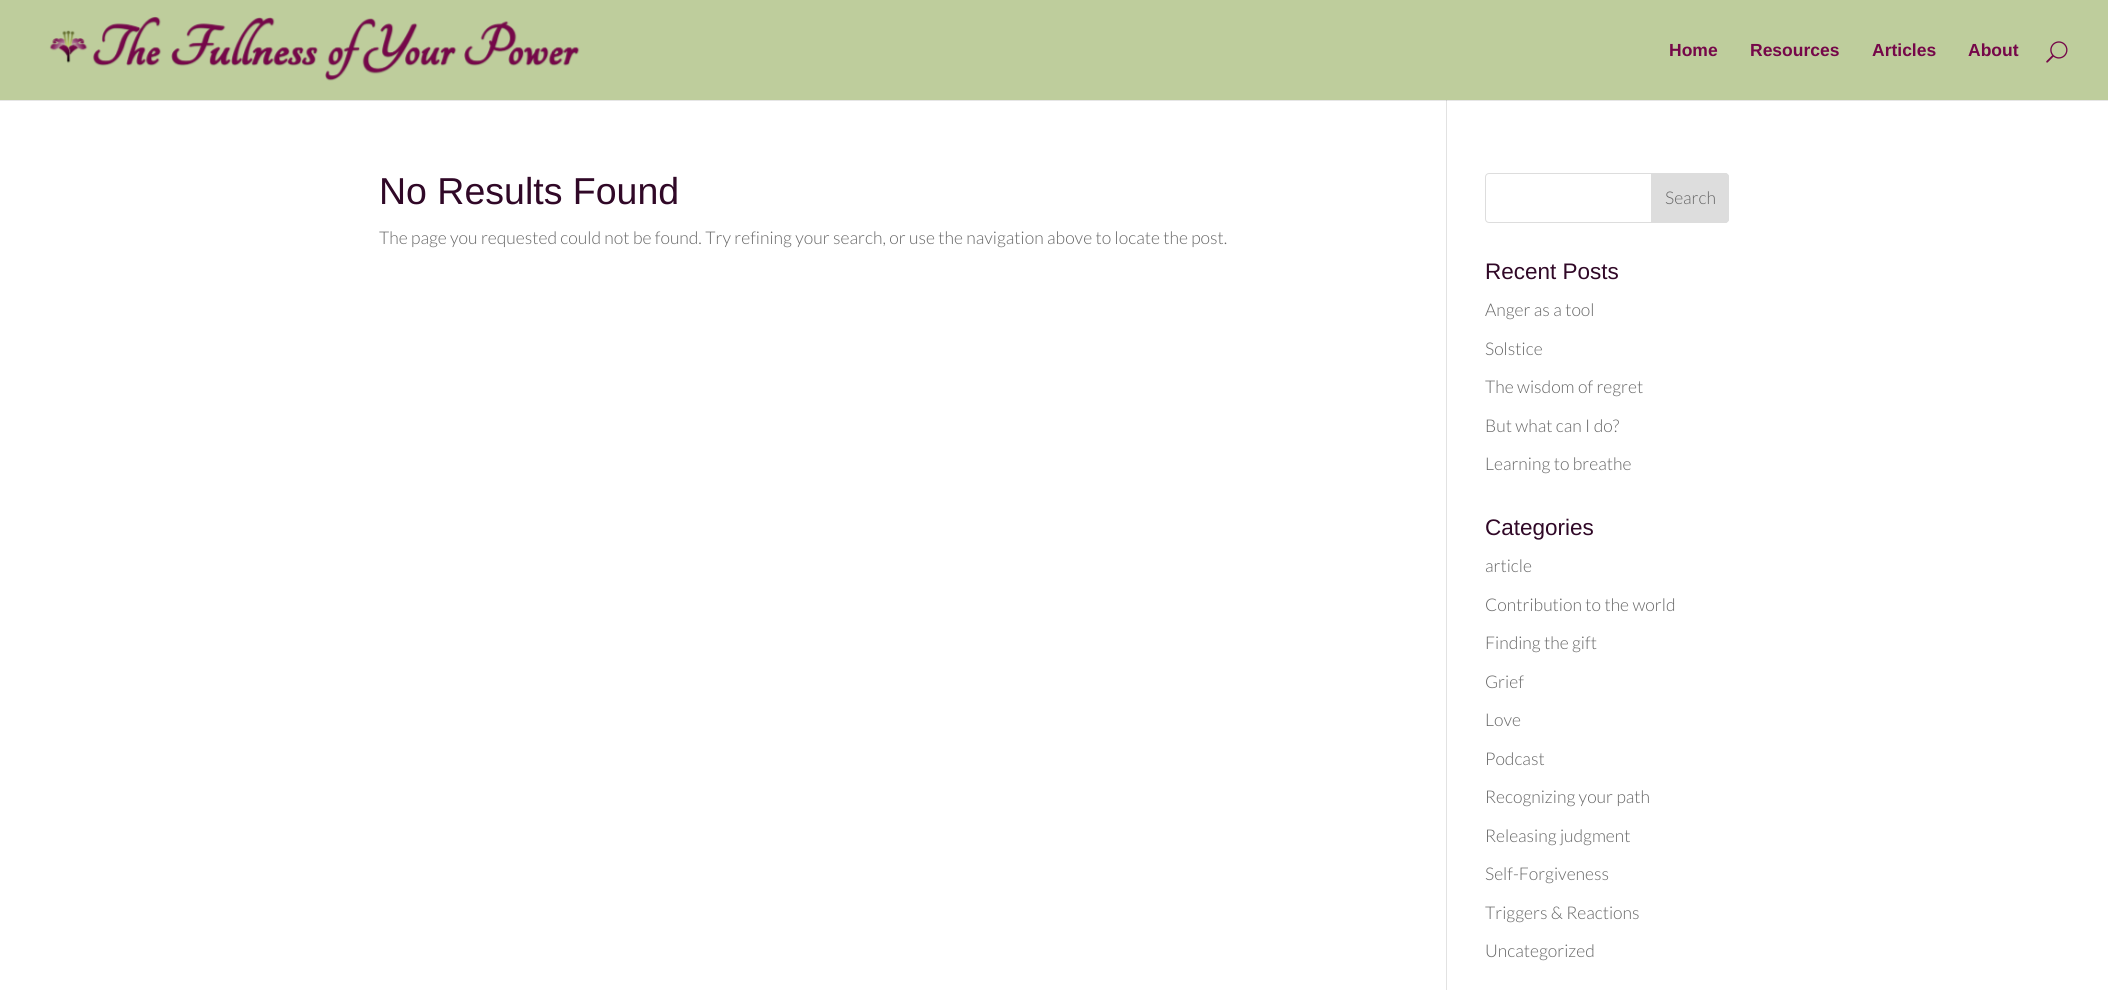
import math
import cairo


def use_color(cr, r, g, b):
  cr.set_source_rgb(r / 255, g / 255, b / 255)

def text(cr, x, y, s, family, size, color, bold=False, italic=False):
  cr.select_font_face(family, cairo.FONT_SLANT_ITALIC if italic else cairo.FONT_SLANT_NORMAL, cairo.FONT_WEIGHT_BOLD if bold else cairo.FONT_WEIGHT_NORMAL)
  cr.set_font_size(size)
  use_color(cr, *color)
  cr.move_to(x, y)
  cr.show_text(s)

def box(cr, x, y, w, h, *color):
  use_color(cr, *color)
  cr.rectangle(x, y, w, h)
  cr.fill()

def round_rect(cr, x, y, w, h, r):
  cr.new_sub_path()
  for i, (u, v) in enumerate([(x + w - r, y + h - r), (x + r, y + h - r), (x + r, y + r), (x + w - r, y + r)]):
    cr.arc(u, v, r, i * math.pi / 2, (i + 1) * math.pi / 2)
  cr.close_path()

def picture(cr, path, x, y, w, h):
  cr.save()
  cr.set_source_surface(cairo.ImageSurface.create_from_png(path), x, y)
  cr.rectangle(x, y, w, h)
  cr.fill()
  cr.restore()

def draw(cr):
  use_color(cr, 255, 255, 255)
  cr.paint()
  box(cr, 1446, 100, 1, 890, 226, 226, 226)
  cr.set_source_rgba(0, 0, 0, 0.1)
  cr.new_path()
  cr.move_to(0, 100)
  cr.line_to(0, 101)
  cr.line_to(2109, 101)
  cr.line_to(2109, 1)
  cr.line_to(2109, 100)
  cr.close_path()
  cr.fill()
  box(cr, 0, 0, 2108, 100, 190, 205, 156)
  picture(cr, "img_01.png", 49, 16, 531, 65)
  picture(cr, "img_02.png", 2046, 41, 22, 22)
  round_rect(cr, 1485.5, 173.5, 243, 49, 3.5)
  use_color(cr, 221, 221, 221)
  cr.set_line_width(1)
  cr.stroke()
  cr.new_path()
  cr.move_to(1651.5, 173.5)
  cr.line_to(1725, 173.5)
  cr.curve_to(1727, 173.5, 1728.5, 175, 1728.5, 177)
  cr.line_to(1728.5, 219)
  cr.curve_to(1728.5, 221, 1727, 222.5, 1725, 222.5)
  cr.line_to(1651.5, 222.5)
  cr.close_path()
  cr.fill_preserve()
  cr.stroke()
  text(cr, 1669, 56, "Home", "Liberation Sans", 17.5, (117, 7, 73), bold=True)
  text(cr, 1750, 56, "Resources", "Liberation Sans", 17.5, (117, 7, 73), bold=True)
  text(cr, 1872, 56, "Articles", "Liberation Sans", 17.5, (117, 7, 73), bold=True)
  text(cr, 1968, 56, "About", "Liberation Sans", 17.5, (117, 7, 73), bold=True)
  text(cr, 379, 204, "No Results Found", "Liberation Sans", 37.5, (48, 8, 39))
  text(cr, 379, 244, "The page you requested could not be found. Try refining your search, or use the navigation above to locate the post.", "Lato Light", 17.5, (102, 102, 102))
  text(cr, 1665, 204, "Search", "Lato Light", 17.5, (102, 102, 102))
  text(cr, 1485, 279, "Recent Posts", "Liberation Sans", 22.5, (48, 8, 39))
  text(cr, 1485, 316, "Anger as a tool", "Lato Light", 17.5, (102, 102, 102))
  text(cr, 1485, 355, "Solstice", "Lato Light", 17.5, (102, 102, 102))
  text(cr, 1485, 393, "The wisdom of regret", "Lato Light", 17.5, (102, 102, 102))
  text(cr, 1485, 432, "But what can I do?", "Lato Light", 17.5, (102, 102, 102))
  text(cr, 1485, 470, "Learning to breathe", "Lato Light", 17.5, (102, 102, 102))
  text(cr, 1485, 535, "Categories", "Liberation Sans", 22.5, (48, 8, 39))
  text(cr, 1485, 572, "article", "Lato Light", 17.5, (102, 102, 102))
  text(cr, 1485, 611, "Contribution to the world", "Lato Light", 17.5, (102, 102, 102))
  text(cr, 1485, 649, "Finding the gift", "Lato Light", 17.5, (102, 102, 102))
  text(cr, 1485, 688, "Grief", "Lato Light", 17.5, (102, 102, 102))
  text(cr, 1485, 726, "Love", "Lato Light", 17.5, (102, 102, 102))
  text(cr, 1485, 765, "Podcast", "Lato Light", 17.5, (102, 102, 102))
  text(cr, 1485, 803, "Recognizing your path", "Lato Light", 17.5, (102, 102, 102))
  text(cr, 1485, 842, "Releasing judgment", "Lato Light", 17.5, (102, 102, 102))
  text(cr, 1485, 880, "Self-Forgiveness", "Lato Light", 17.5, (102, 102, 102))
  text(cr, 1485, 919, "Triggers & Reactions", "Lato Light", 17.5, (102, 102, 102))
  text(cr, 1485, 957, "Uncategorized", "Lato Light", 17.5, (102, 102, 102))


surface = cairo.ImageSurface(cairo.FORMAT_RGB24, 2108, 990)
cr = cairo.Context(surface)
options = cairo.FontOptions()
options.set_hint_metrics(cairo.HINT_METRICS_OFF)
options.set_hint_style(cairo.HINT_STYLE_NONE)
cr.set_font_options(options)
cr.set_miter_limit(4)
draw(cr)
surface.write_to_png("out.png")
